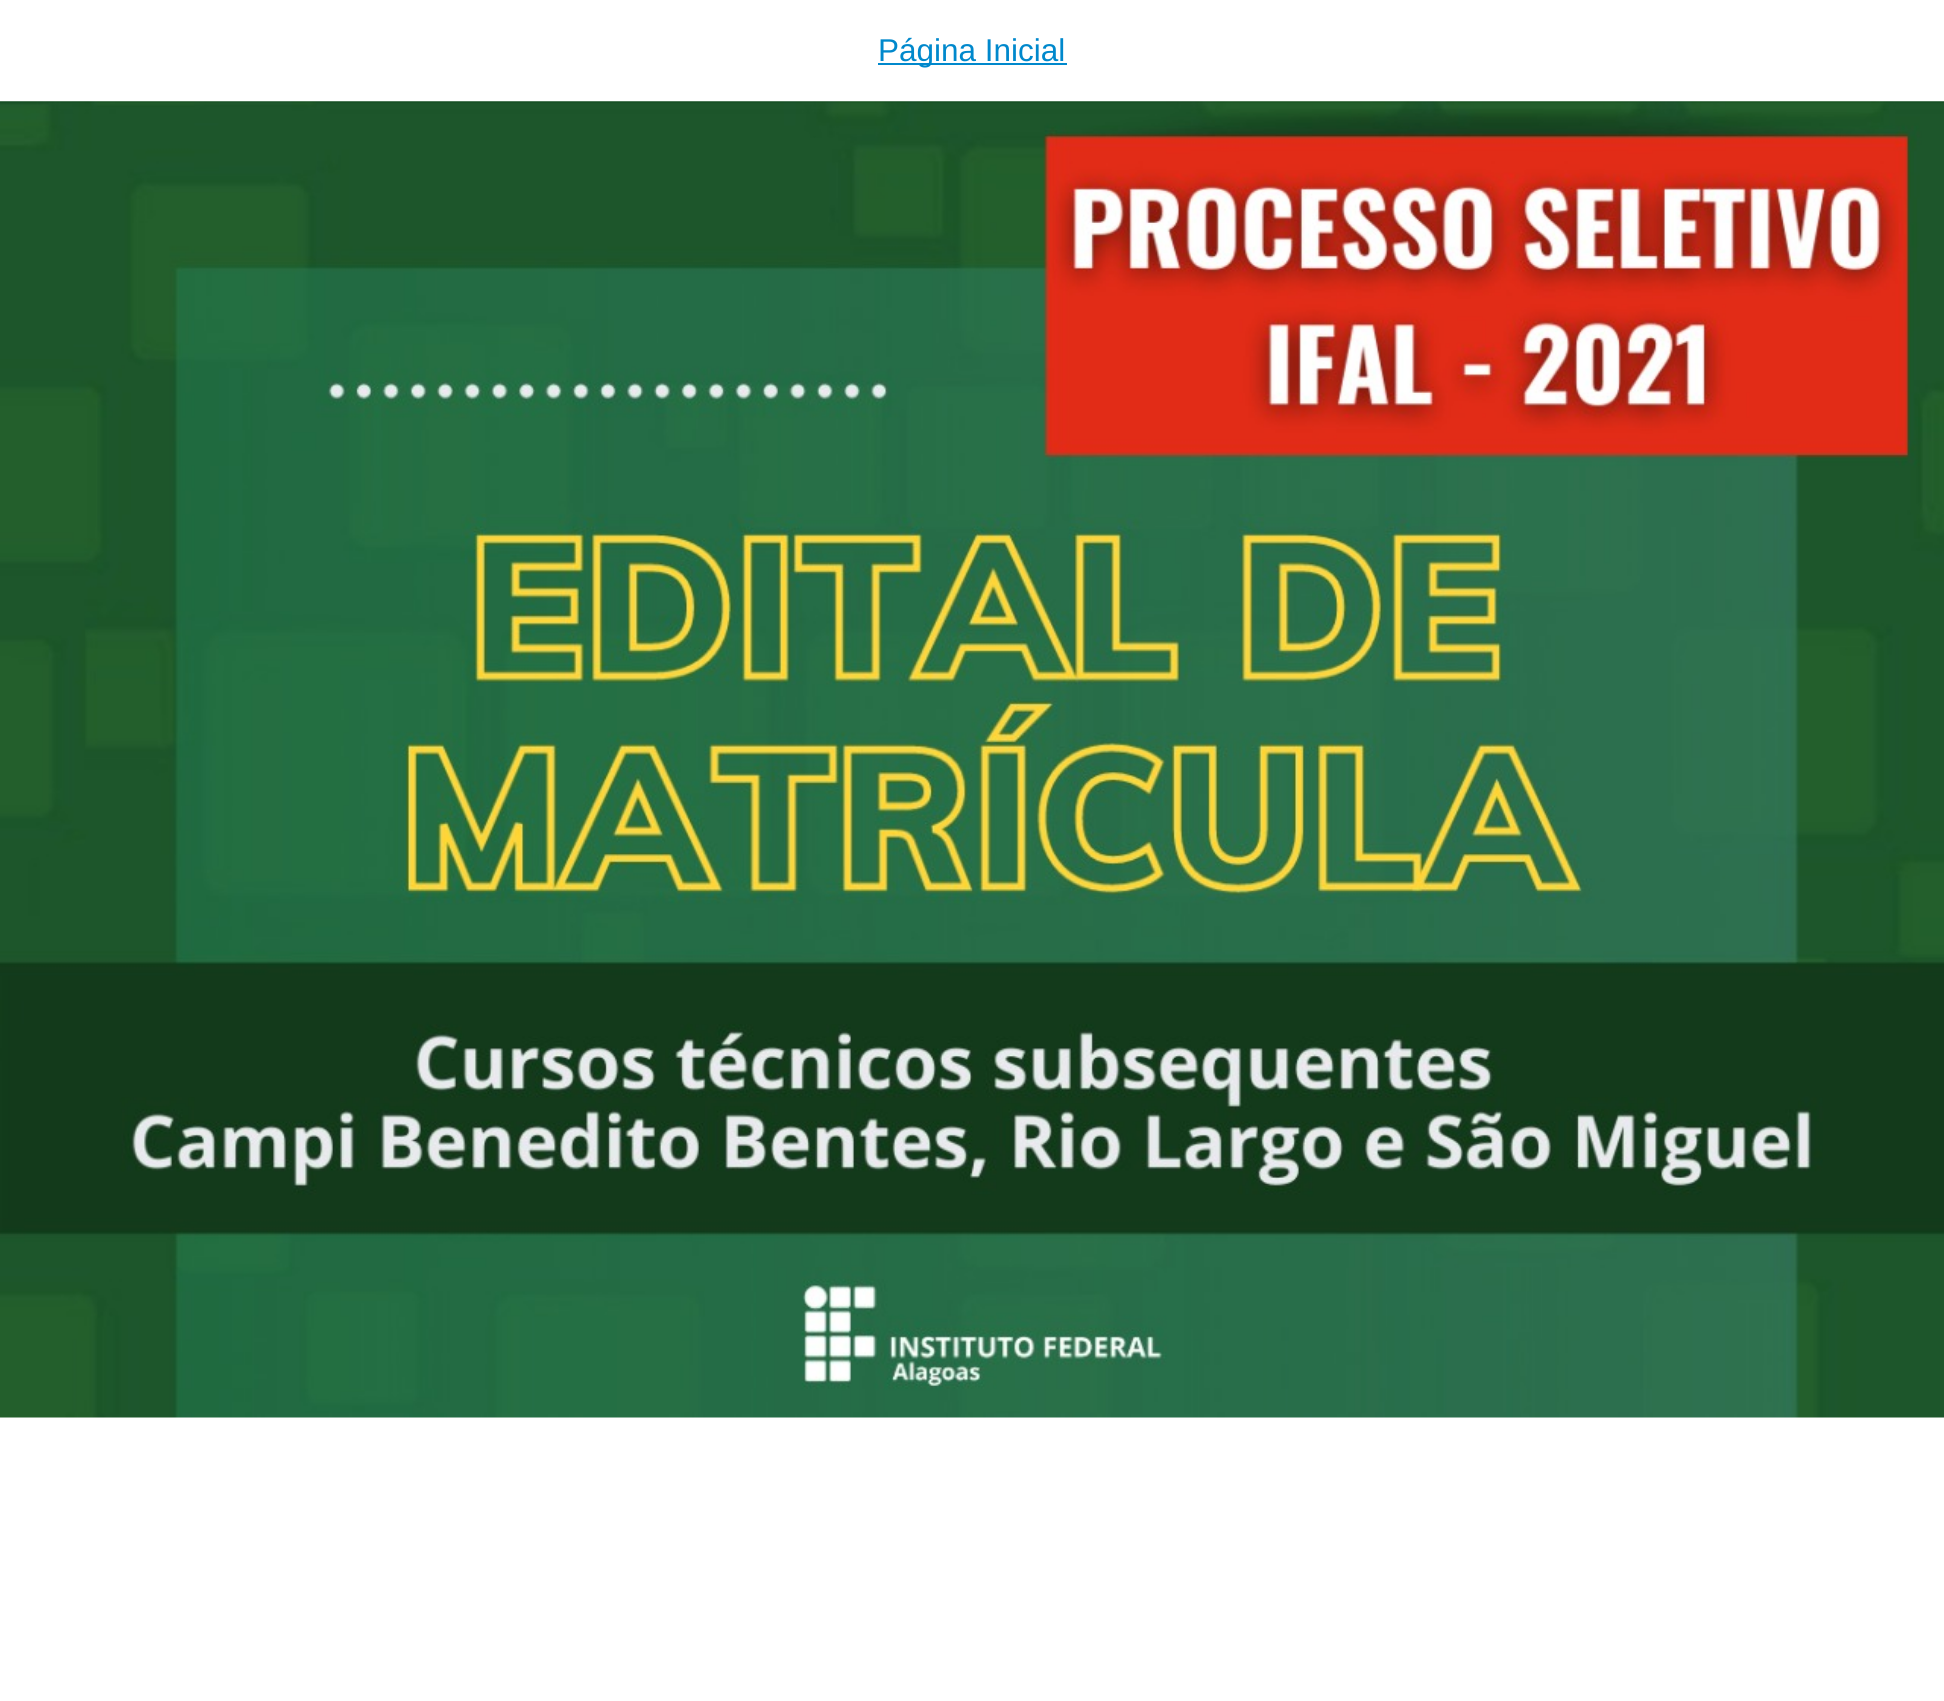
import math
import cairo


def use_color(cr, r, g, b):
  cr.set_source_rgb(r / 255, g / 255, b / 255)

def text(cr, x, y, s, family, size, color, bold=False, italic=False):
  cr.select_font_face(family, cairo.FONT_SLANT_ITALIC if italic else cairo.FONT_SLANT_NORMAL, cairo.FONT_WEIGHT_BOLD if bold else cairo.FONT_WEIGHT_NORMAL)
  cr.set_font_size(size)
  use_color(cr, *color)
  cr.move_to(x, y)
  cr.show_text(s)

def box(cr, x, y, w, h, *color):
  use_color(cr, *color)
  cr.rectangle(x, y, w, h)
  cr.fill()

def picture(cr, path, x, y, w, h):
  cr.save()
  cr.set_source_surface(cairo.ImageSurface.create_from_png(path), x, y)
  cr.rectangle(x, y, w, h)
  cr.fill()
  cr.restore()

def draw(cr):
  use_color(cr, 255, 255, 255)
  cr.paint()
  box(cr, 878, 63, 189, 2, 0, 136, 204)
  picture(cr, "img_01.png", 0, 101, 1944, 1317)
  text(cr, 878, 61, "Página Inicial", "Liberation Sans", 31.5, (0, 136, 204))


surface = cairo.ImageSurface(cairo.FORMAT_RGB24, 1944, 1701)
cr = cairo.Context(surface)
options = cairo.FontOptions()
options.set_hint_metrics(cairo.HINT_METRICS_OFF)
options.set_hint_style(cairo.HINT_STYLE_NONE)
cr.set_font_options(options)
cr.set_miter_limit(4)
draw(cr)
surface.write_to_png("out.png")
